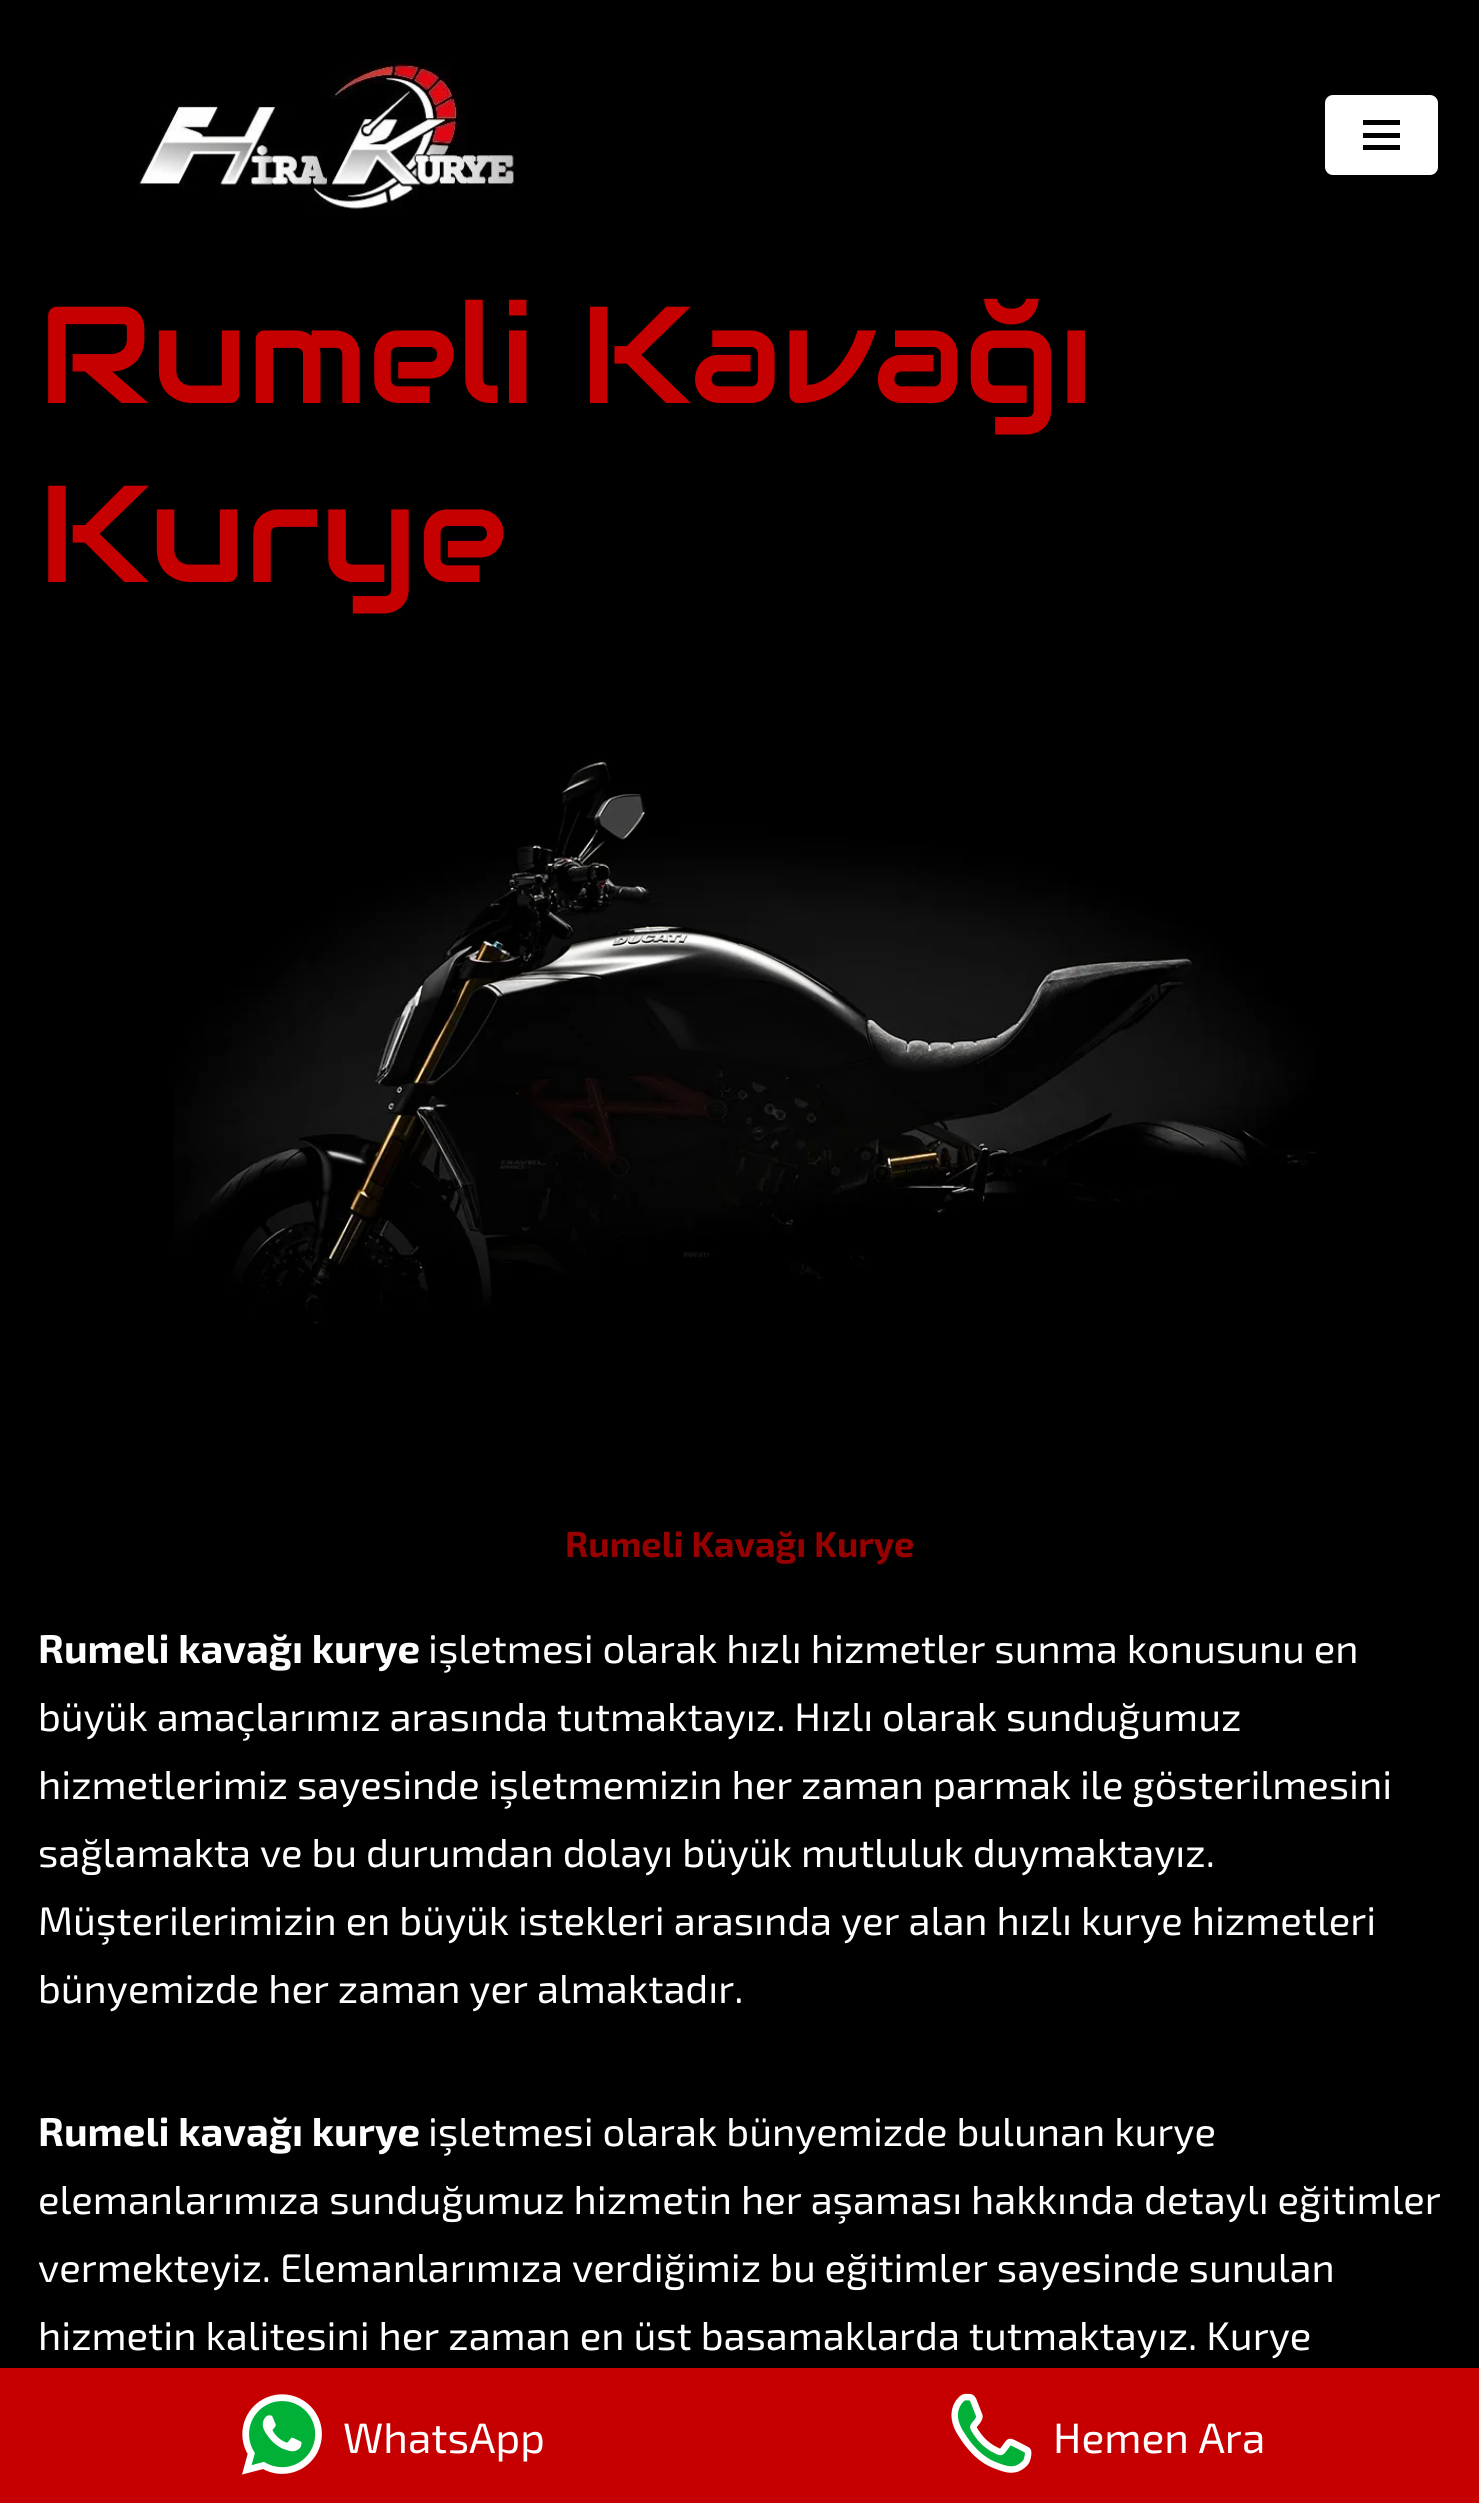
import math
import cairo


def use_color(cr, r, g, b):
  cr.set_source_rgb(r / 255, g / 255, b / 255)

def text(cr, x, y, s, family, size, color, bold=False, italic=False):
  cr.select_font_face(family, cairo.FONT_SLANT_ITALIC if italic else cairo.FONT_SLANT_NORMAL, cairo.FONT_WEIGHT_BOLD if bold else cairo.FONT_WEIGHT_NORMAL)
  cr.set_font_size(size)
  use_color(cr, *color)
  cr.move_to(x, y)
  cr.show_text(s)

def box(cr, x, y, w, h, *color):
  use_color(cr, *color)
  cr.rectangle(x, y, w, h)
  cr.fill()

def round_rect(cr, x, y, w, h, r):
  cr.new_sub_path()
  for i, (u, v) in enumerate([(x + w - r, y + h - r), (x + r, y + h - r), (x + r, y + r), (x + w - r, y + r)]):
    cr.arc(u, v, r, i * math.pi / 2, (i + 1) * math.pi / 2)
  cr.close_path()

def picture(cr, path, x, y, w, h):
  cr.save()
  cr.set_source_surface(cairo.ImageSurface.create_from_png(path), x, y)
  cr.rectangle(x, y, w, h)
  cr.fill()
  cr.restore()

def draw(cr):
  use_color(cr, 0, 0, 0)
  cr.paint()
  picture(cr, "img_01.png", 139, 59, 376, 150)
  use_color(cr, 255, 255, 255)
  round_rect(cr, 1322.5, 92.5, 118, 85, 10.5)
  cr.fill_preserve()
  use_color(cr, 0, 0, 0)
  cr.set_line_width(5)
  cr.stroke()
  box(cr, 1363, 120, 37, 5, 0, 0, 0)
  box(cr, 1363, 133, 37, 5, 0, 0, 0)
  box(cr, 1363, 145, 37, 5, 0, 0, 0)
  picture(cr, "img_02.png", 173, 759, 1143, 565)
  box(cr, 0, 2368, 1479, 135, 198, 0, 0)
  picture(cr, "img_03.png", 242, 2394, 80, 81)
  picture(cr, "img_04.png", 951, 2393, 81, 80)
  text(cr, 38, 403, "Rumeli Kavağı", "Audiowide", 137.5, (198, 0, 0))
  text(cr, 38, 582, "Kurye", "Audiowide", 137.5, (198, 0, 0))
  text(cr, 565, 1557, "Rumeli Kavağı Kurye", "Exo 2", 36, (149, 0, 0), bold=True)
  text(cr, 38, 1663, "Rumeli kavağı kurye", "Exo 2", 40, (255, 255, 255), bold=True)
  text(cr, 428, 1663, "işletmesi olarak hızlı hizmetler sunma konusunu en", "Exo 2", 40, (255, 255, 255))
  text(cr, 38, 1731, "büyük amaçlarımız arasında tutmaktayız. Hızlı olarak sunduğumuz", "Exo 2", 40, (255, 255, 255))
  text(cr, 38, 1799, "hizmetlerimiz sayesinde işletmemizin her zaman parmak ile gösterilmesini", "Exo 2", 40, (255, 255, 255))
  text(cr, 38, 1867, "sağlamakta ve bu durumdan dolayı büyük mutluluk duymaktayız.", "Exo 2", 40, (255, 255, 255))
  text(cr, 38, 1935, "Müşterilerimizin en büyük istekleri arasında yer alan hızlı kurye hizmetleri", "Exo 2", 40, (255, 255, 255))
  text(cr, 38, 2003, "bünyemizde her zaman yer almaktadır.", "Exo 2", 40, (255, 255, 255))
  text(cr, 38, 2146, "Rumeli kavağı kurye", "Exo 2", 40, (255, 255, 255), bold=True)
  text(cr, 428, 2146, "işletmesi olarak bünyemizde bulunan kurye", "Exo 2", 40, (255, 255, 255))
  text(cr, 38, 2214, "elemanlarımıza sunduğumuz hizmetin her aşaması hakkında detaylı eğitimler", "Exo 2", 40, (255, 255, 255))
  text(cr, 38, 2282, "vermekteyiz. Elemanlarımıza verdiğimiz bu eğitimler sayesinde sunulan", "Exo 2", 40, (255, 255, 255))
  text(cr, 38, 2350, "hizmetin kalitesini her zaman en üst basamaklarda tutmaktayız. Kurye", "Exo 2", 40, (255, 255, 255))
  text(cr, 343, 2453, "WhatsApp", "Exo 2", 42.5, (255, 255, 255))
  text(cr, 1053, 2453, "Hemen Ara", "Exo 2", 42.5, (255, 255, 255))


surface = cairo.ImageSurface(cairo.FORMAT_RGB24, 1479, 2503)
cr = cairo.Context(surface)
options = cairo.FontOptions()
options.set_hint_metrics(cairo.HINT_METRICS_OFF)
options.set_hint_style(cairo.HINT_STYLE_NONE)
cr.set_font_options(options)
cr.set_miter_limit(4)
draw(cr)
surface.write_to_png("out.png")
